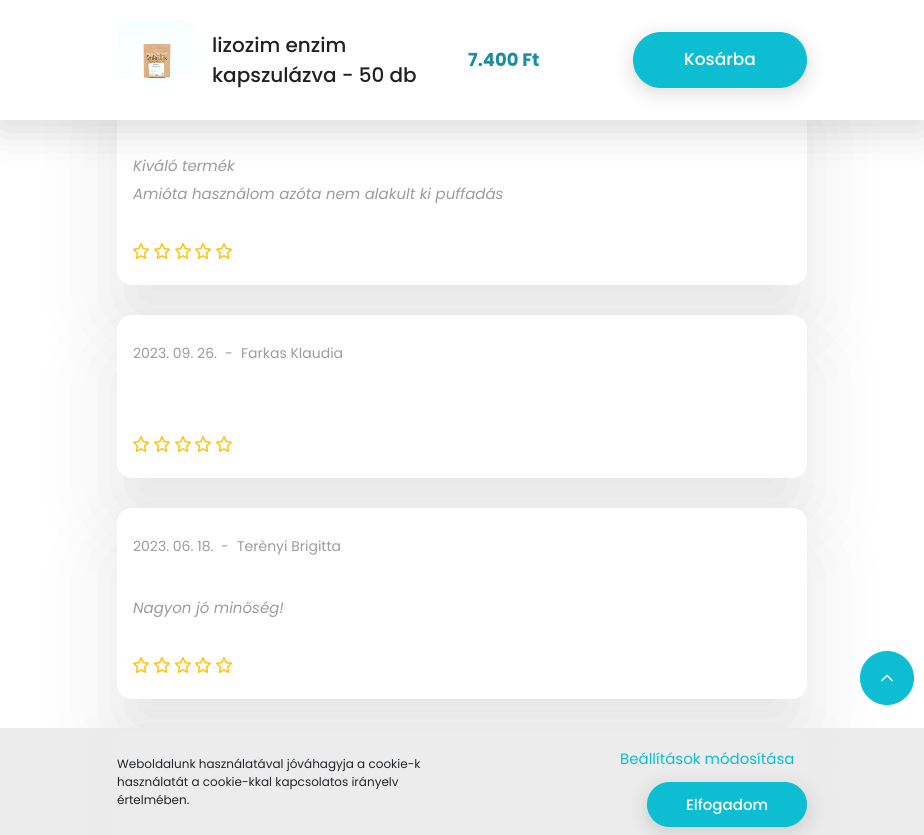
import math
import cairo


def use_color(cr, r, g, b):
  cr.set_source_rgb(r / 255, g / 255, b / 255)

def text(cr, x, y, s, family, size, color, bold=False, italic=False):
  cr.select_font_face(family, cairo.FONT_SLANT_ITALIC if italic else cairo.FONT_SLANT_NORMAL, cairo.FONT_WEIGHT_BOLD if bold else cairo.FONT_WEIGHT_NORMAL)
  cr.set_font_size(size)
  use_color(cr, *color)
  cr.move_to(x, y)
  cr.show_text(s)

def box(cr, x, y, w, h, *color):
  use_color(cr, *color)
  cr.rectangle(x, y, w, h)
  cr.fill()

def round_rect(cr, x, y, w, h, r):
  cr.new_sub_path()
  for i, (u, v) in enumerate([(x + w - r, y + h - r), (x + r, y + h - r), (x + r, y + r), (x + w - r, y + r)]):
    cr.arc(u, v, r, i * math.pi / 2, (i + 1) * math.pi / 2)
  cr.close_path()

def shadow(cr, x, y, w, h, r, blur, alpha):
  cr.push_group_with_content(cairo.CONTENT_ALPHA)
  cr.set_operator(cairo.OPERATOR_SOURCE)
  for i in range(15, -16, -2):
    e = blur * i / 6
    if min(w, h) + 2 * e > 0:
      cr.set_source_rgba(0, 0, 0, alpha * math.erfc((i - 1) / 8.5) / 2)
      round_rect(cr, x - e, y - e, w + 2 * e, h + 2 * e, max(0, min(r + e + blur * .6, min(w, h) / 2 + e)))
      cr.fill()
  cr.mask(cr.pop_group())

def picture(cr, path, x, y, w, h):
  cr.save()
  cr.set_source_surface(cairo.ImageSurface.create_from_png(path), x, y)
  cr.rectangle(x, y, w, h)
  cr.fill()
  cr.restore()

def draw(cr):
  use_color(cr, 255, 255, 255)
  cr.paint()
  use_color(cr, 0, 0, 0)
  shadow(cr, 117, 106, 690, 219, 15, 40, 0.1)
  use_color(cr, 255, 255, 255)
  round_rect(cr, 117, 66, 690, 219, 15)
  cr.fill()
  use_color(cr, 0, 0, 0)
  shadow(cr, 0, 10, 924, 120, 0, 20, 0.15)
  box(cr, 0, 0, 924, 120, 255, 255, 255)
  picture(cr, "img_01.png", 117, 20, 80, 66)
  use_color(cr, 32, 32, 44)
  shadow(cr, 633, 37, 174, 56, 28, 10, 0.15)
  use_color(cr, 13, 190, 210)
  round_rect(cr, 633.5, 32.5, 173, 55, 27.5)
  cr.fill_preserve()
  cr.set_line_width(1)
  cr.stroke()
  picture(cr, "img_02.png", 133, 243, 16, 16)
  picture(cr, "img_02.png", 154, 243, 16, 16)
  picture(cr, "img_02.png", 175, 243, 16, 16)
  picture(cr, "img_02.png", 195, 243, 16, 16)
  picture(cr, "img_02.png", 216, 243, 16, 16)
  use_color(cr, 0, 0, 0)
  shadow(cr, 117, 355, 690, 163, 15, 40, 0.1)
  use_color(cr, 255, 255, 255)
  round_rect(cr, 117, 315, 690, 163, 15)
  cr.fill()
  picture(cr, "img_02.png", 133, 436, 16, 16)
  picture(cr, "img_02.png", 154, 436, 16, 16)
  picture(cr, "img_02.png", 175, 436, 16, 16)
  picture(cr, "img_02.png", 195, 436, 16, 16)
  picture(cr, "img_02.png", 216, 436, 16, 16)
  use_color(cr, 0, 0, 0)
  shadow(cr, 117, 548, 690, 191, 15, 40, 0.1)
  use_color(cr, 255, 255, 255)
  round_rect(cr, 117, 508, 690, 191, 15)
  cr.fill()
  picture(cr, "img_02.png", 133, 657, 16, 16)
  picture(cr, "img_02.png", 154, 657, 16, 16)
  picture(cr, "img_02.png", 175, 657, 16, 16)
  picture(cr, "img_02.png", 195, 657, 16, 16)
  picture(cr, "img_02.png", 216, 657, 16, 16)
  use_color(cr, 0, 0, 0)
  shadow(cr, 117, 769, 690, 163, 15, 40, 0.1)
  use_color(cr, 255, 255, 255)
  round_rect(cr, 117, 729, 690, 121, 15)
  cr.fill()
  use_color(cr, 13, 190, 210)
  cr.arc(887, 678, 26.5, 0, 2 * math.pi)
  cr.fill_preserve()
  cr.stroke()
  picture(cr, "img_03.png", 881, 674, 12, 8)
  cr.set_source_rgba(0.918, 0.918, 0.918, 0.9)
  cr.rectangle(0, 728, 924, 107)
  cr.fill()
  use_color(cr, 32, 32, 44)
  shadow(cr, 647, 787, 160, 45, 22.5, 10, 0.15)
  use_color(cr, 13, 190, 210)
  round_rect(cr, 647.5, 782.5, 159, 44, 22)
  cr.fill_preserve()
  cr.stroke()
  text(cr, 212, 52, "lizozim enzim", "Poppins Medium", 20, (33, 33, 33))
  text(cr, 212, 82, "kapszulázva - 50 db", "Poppins Medium", 20, (33, 33, 33))
  text(cr, 468, 66, "7.400 Ft", "Poppins", 18, (26, 142, 160), bold=True)
  text(cr, 684, 65, "Kosárba", "Poppins Medium", 17, (255, 255, 255))
  text(cr, 133, 171, "Kiváló termék", "Poppins", 15, (156, 155, 159), italic=True)
  text(cr, 133, 199, "Amióta használom azóta nem alakult ki puffadás", "Poppins", 15, (156, 155, 159), italic=True)
  text(cr, 133, 358, "2023. 09. 26.", "Poppins", 14, (156, 155, 159))
  text(cr, 225, 358, "-", "Poppins", 14, (156, 155, 159))
  text(cr, 241, 358, "Farkas Klaudia", "Poppins", 14, (156, 155, 159))
  text(cr, 133, 551, "2023. 06. 18.", "Poppins", 14, (156, 155, 159))
  text(cr, 221, 551, "-", "Poppins", 14, (156, 155, 159))
  text(cr, 237, 551, "Terènyi Brigitta", "Poppins", 14, (156, 155, 159))
  text(cr, 133, 613, "Nagyon jó minőség!", "Poppins", 15, (156, 155, 159), italic=True)
  text(cr, 117, 768, "Weboldalunk használatával jóváhagyja a cookie-k", "Poppins", 12, (33, 37, 41))
  text(cr, 117, 786, "használatát a cookie-kkal kapcsolatos irányelv", "Poppins", 12, (33, 37, 41))
  text(cr, 117, 804, "értelmében.", "Poppins", 12, (33, 37, 41))
  text(cr, 620, 764, "Beállítások módosítása", "Poppins", 15, (13, 190, 210))
  text(cr, 686, 810, "Elfogadom", "Poppins Medium", 15, (255, 255, 255))


surface = cairo.ImageSurface(cairo.FORMAT_RGB24, 924, 835)
cr = cairo.Context(surface)
options = cairo.FontOptions()
options.set_hint_metrics(cairo.HINT_METRICS_OFF)
options.set_hint_style(cairo.HINT_STYLE_NONE)
cr.set_font_options(options)
cr.set_miter_limit(4)
draw(cr)
surface.write_to_png("out.png")
